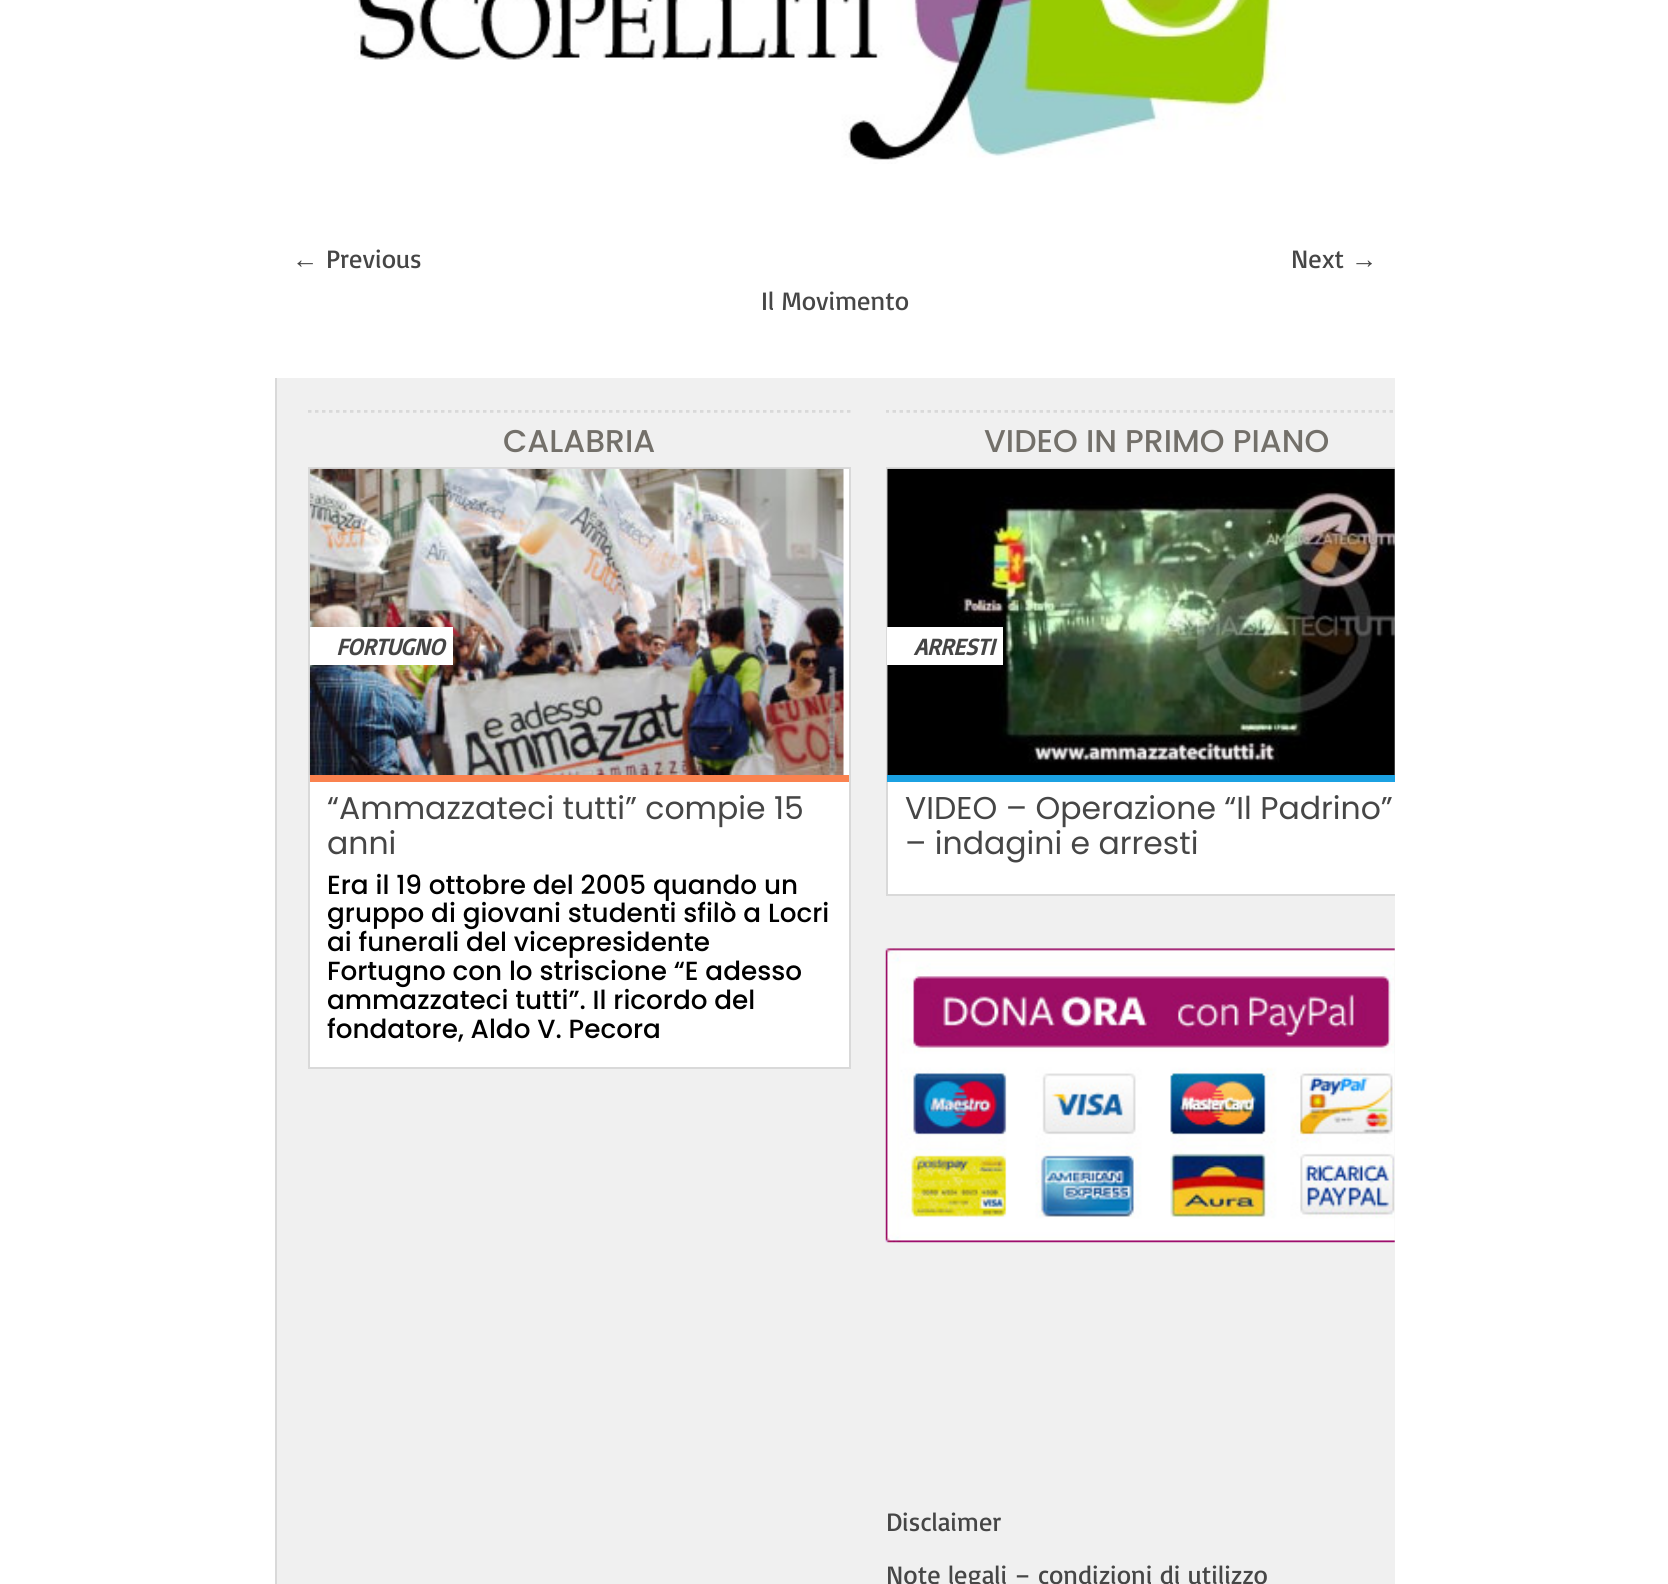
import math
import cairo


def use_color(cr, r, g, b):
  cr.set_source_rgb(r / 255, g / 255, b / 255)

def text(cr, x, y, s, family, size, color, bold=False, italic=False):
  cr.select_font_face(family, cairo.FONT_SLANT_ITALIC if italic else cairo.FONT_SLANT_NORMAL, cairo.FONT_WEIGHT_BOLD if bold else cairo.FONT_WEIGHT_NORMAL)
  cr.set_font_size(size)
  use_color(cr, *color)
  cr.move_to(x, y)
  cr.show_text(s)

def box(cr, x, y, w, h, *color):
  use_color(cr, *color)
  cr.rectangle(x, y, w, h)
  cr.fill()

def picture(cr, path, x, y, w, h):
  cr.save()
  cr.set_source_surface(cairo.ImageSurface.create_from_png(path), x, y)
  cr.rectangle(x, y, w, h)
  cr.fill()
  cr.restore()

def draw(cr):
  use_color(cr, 255, 255, 255)
  cr.paint()
  picture(cr, "img_01.png", 354, 0, 932, 164)
  box(cr, 277, 378, 1118, 1206, 240, 240, 240)
  box(cr, 275, 378, 2, 1206, 217, 217, 217)
  cr.save()
  cr.rectangle(308, 410, 543, 659)
  cr.clip()
  cr.new_path()
  cr.move_to(308, 411)
  cr.line_to(850.5, 411)
  cr.set_line_width(3.5)
  cr.set_dash([3.5, 3.5])
  cr.stroke()
  cr.restore()
  use_color(cr, 255, 255, 255)
  cr.rectangle(309, 468, 541, 600)
  cr.fill_preserve()
  use_color(cr, 217, 217, 217)
  cr.stroke()
  box(cr, 310, 775, 539, 7, 250, 130, 79)
  picture(cr, "img_02.png", 309, 468, 535, 307)
  box(cr, 310, 627, 143, 38, 255, 255, 255)
  cr.save()
  cr.rectangle(886, 410, 509, 486)
  cr.clip()
  cr.new_path()
  cr.move_to(885.5, 411)
  cr.line_to(1428, 411)
  use_color(cr, 217, 217, 217)
  cr.set_line_width(3.5)
  cr.set_dash([3.5, 3.5])
  cr.stroke()
  cr.restore()
  box(cr, 888, 469, 507, 425, 255, 255, 255)
  cr.save()
  cr.rectangle(886, 410, 509, 486)
  cr.clip()
  cr.rectangle(887, 468, 540, 427)
  use_color(cr, 217, 217, 217)
  cr.stroke()
  cr.restore()
  box(cr, 887, 775, 508, 7, 27, 161, 226)
  picture(cr, "img_03.png", 887, 468, 508, 307)
  box(cr, 887, 627, 116, 38, 255, 255, 255)
  picture(cr, "img_04.png", 885, 948, 510, 295)
  text(cr, 292, 268, "←", "Liberation Sans", 26.25, (70, 70, 70))
  text(cr, 326, 268, "Previous", "Basic", 26.25, (70, 70, 70))
  text(cr, 1291, 268, "Next", "Basic", 26.25, (70, 70, 70))
  text(cr, 1351, 268, "→", "Liberation Sans", 26.25, (70, 70, 70))
  text(cr, 761, 310, "Il Movimento", "Basic", 26.25, (70, 70, 70))
  text(cr, 503, 452, "CALABRIA", "Poppins Medium", 31.5, (115, 112, 106))
  text(cr, 336, 655, "FORTUGNO", "Basic", 23.5, (70, 70, 70), bold=True, italic=True)
  text(cr, 327, 819, "“Ammazzateci tutti” compie 15", "Poppins", 31.5, (70, 70, 70))
  text(cr, 327, 854, "anni", "Poppins", 31.5, (70, 70, 70))
  text(cr, 327, 894, "Era il 19 ottobre del 2005 quando un", "Poppins Medium", 26.25, (0, 0, 0))
  text(cr, 327, 922, "gruppo di giovani studenti sfilò a Locri", "Poppins Medium", 26.25, (0, 0, 0))
  text(cr, 327, 951, "ai funerali del vicepresidente", "Poppins Medium", 26.25, (0, 0, 0))
  text(cr, 327, 980, "Fortugno con lo striscione “E adesso", "Poppins Medium", 26.25, (0, 0, 0))
  text(cr, 327, 1009, "ammazzateci tutti”. Il ricordo del", "Poppins Medium", 26.25, (0, 0, 0))
  text(cr, 327, 1038, "fondatore, Aldo V. Pecora", "Poppins Medium", 26.25, (0, 0, 0))
  text(cr, 984, 452, "VIDEO IN PRIMO PIANO", "Poppins Medium", 31.5, (115, 112, 106))
  text(cr, 914, 655, "ARRESTI", "Basic", 23.5, (70, 70, 70), bold=True, italic=True)
  text(cr, 905, 819, "VIDEO – Operazione “Il Padrino”", "Poppins", 31.5, (70, 70, 70))
  text(cr, 905, 854, "– indagini e arresti", "Poppins", 31.5, (70, 70, 70))
  text(cr, 886, 1531, "Disclaimer", "Basic", 26.25, (70, 70, 70))
  text(cr, 886, 1584, "Note legali – condizioni di utilizzo", "Basic", 26.25, (70, 70, 70))


surface = cairo.ImageSurface(cairo.FORMAT_RGB24, 1668, 1584)
cr = cairo.Context(surface)
options = cairo.FontOptions()
options.set_hint_metrics(cairo.HINT_METRICS_OFF)
options.set_hint_style(cairo.HINT_STYLE_NONE)
cr.set_font_options(options)
cr.set_miter_limit(4)
draw(cr)
surface.write_to_png("out.png")
